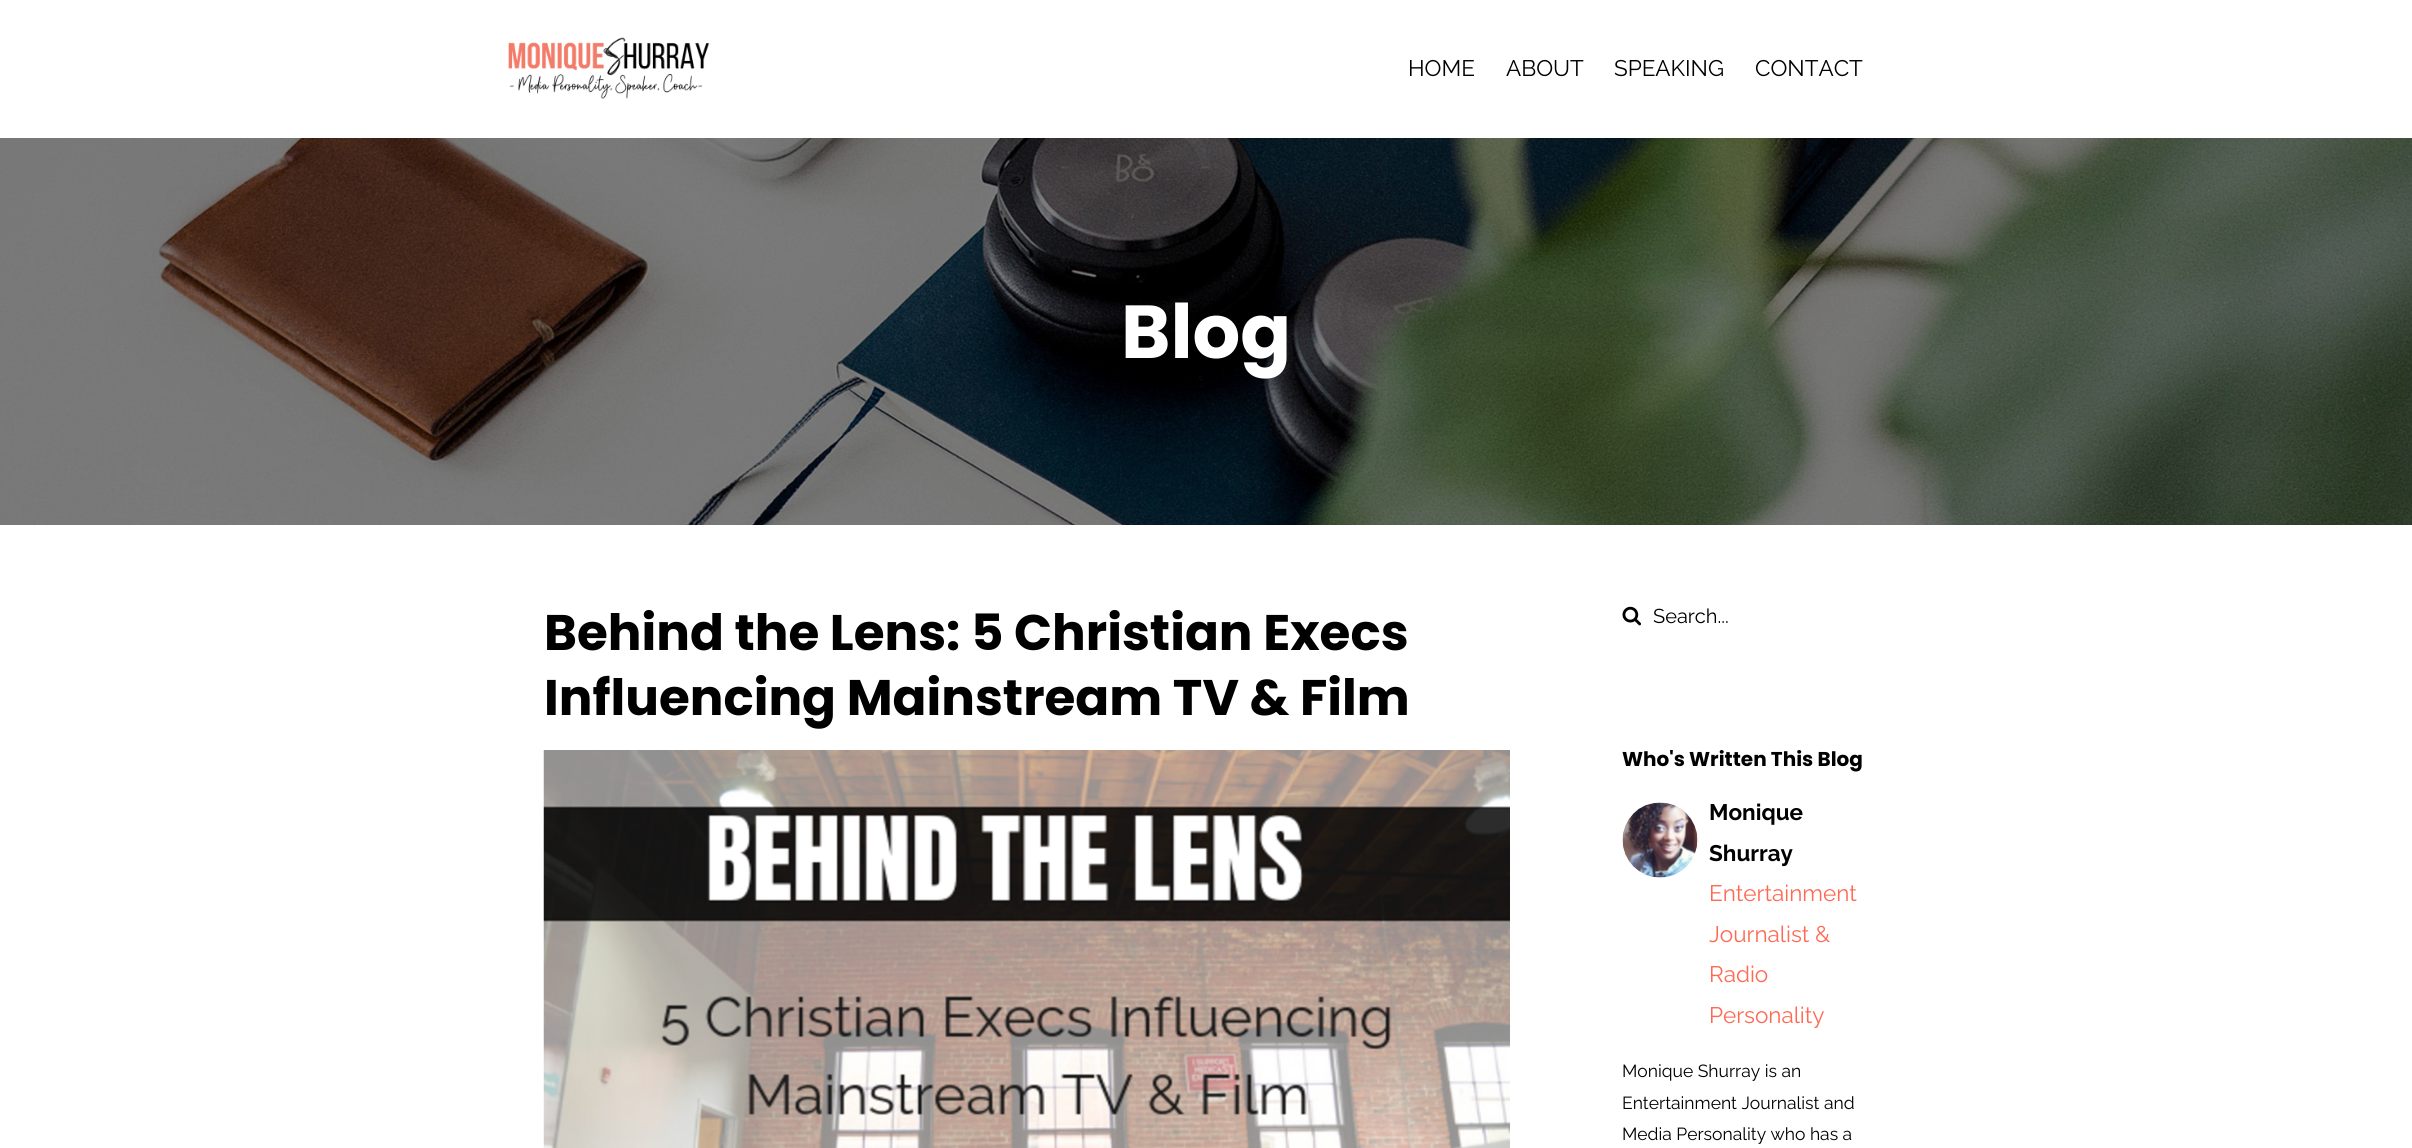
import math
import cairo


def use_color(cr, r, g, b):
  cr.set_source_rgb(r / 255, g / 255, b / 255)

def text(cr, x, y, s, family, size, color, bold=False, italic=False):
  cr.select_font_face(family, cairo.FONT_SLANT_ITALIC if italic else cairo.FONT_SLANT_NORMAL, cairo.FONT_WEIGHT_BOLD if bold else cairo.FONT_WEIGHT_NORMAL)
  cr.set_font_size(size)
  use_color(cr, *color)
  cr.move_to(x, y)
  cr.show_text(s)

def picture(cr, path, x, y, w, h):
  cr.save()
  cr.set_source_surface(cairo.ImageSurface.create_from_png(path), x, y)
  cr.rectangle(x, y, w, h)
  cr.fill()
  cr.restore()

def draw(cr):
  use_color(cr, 255, 255, 255)
  cr.paint()
  picture(cr, "img_01.png", 508, 37, 202, 62)
  picture(cr, "img_02.png", 0, 138, 2412, 387)
  picture(cr, "img_03.png", 543, 750, 967, 398)
  picture(cr, "img_04.png", 1622, 606, 19, 20)
  picture(cr, "img_05.png", 1622, 802, 76, 76)
  text(cr, 1408, 76, "HOME", "Raleway", 22.5, (0, 0, 0))
  text(cr, 1506, 76, "ABOUT", "Raleway", 22.5, (0, 0, 0))
  text(cr, 1614, 76, "SPEAKING", "Raleway", 22.5, (0, 0, 0))
  text(cr, 1755, 76, "CONTACT", "Raleway", 22.5, (0, 0, 0))
  text(cr, 1121, 358, "Blog", "Poppins", 75, (255, 255, 255), bold=True)
  text(cr, 544, 650, "Behind the Lens: 5 Christian Execs", "Poppins", 50, (0, 0, 0), bold=True)
  text(cr, 544, 715, "Influencing Mainstream TV & Film", "Poppins", 50, (0, 0, 0), bold=True)
  text(cr, 1653, 623, "Search...", "Raleway", 20, (0, 0, 0))
  text(cr, 1622, 766, "Who's Written This Blog", "Poppins", 20, (0, 0, 0), bold=True)
  text(cr, 1709, 820, "Monique", "Raleway", 22.5, (0, 0, 0), bold=True)
  text(cr, 1709, 861, "Shurray", "Raleway", 22.5, (0, 0, 0), bold=True)
  text(cr, 1709, 901, "Entertainment", "Raleway", 22.5, (255, 105, 83))
  text(cr, 1709, 942, "Journalist &", "Raleway", 22.5, (255, 105, 83))
  text(cr, 1709, 982, "Radio", "Raleway", 22.5, (255, 105, 83))
  text(cr, 1709, 1023, "Personality", "Raleway", 22.5, (255, 105, 83))
  text(cr, 1622, 1077, "Monique Shurray is an", "Raleway", 17.5, (0, 0, 0))
  text(cr, 1622, 1109, "Entertainment Journalist and", "Raleway", 17.5, (0, 0, 0))
  text(cr, 1622, 1140, "Media Personality who has a", "Raleway", 17.5, (0, 0, 0))


surface = cairo.ImageSurface(cairo.FORMAT_RGB24, 2412, 1148)
cr = cairo.Context(surface)
options = cairo.FontOptions()
options.set_hint_metrics(cairo.HINT_METRICS_OFF)
options.set_hint_style(cairo.HINT_STYLE_NONE)
cr.set_font_options(options)
cr.set_miter_limit(4)
draw(cr)
surface.write_to_png("out.png")
